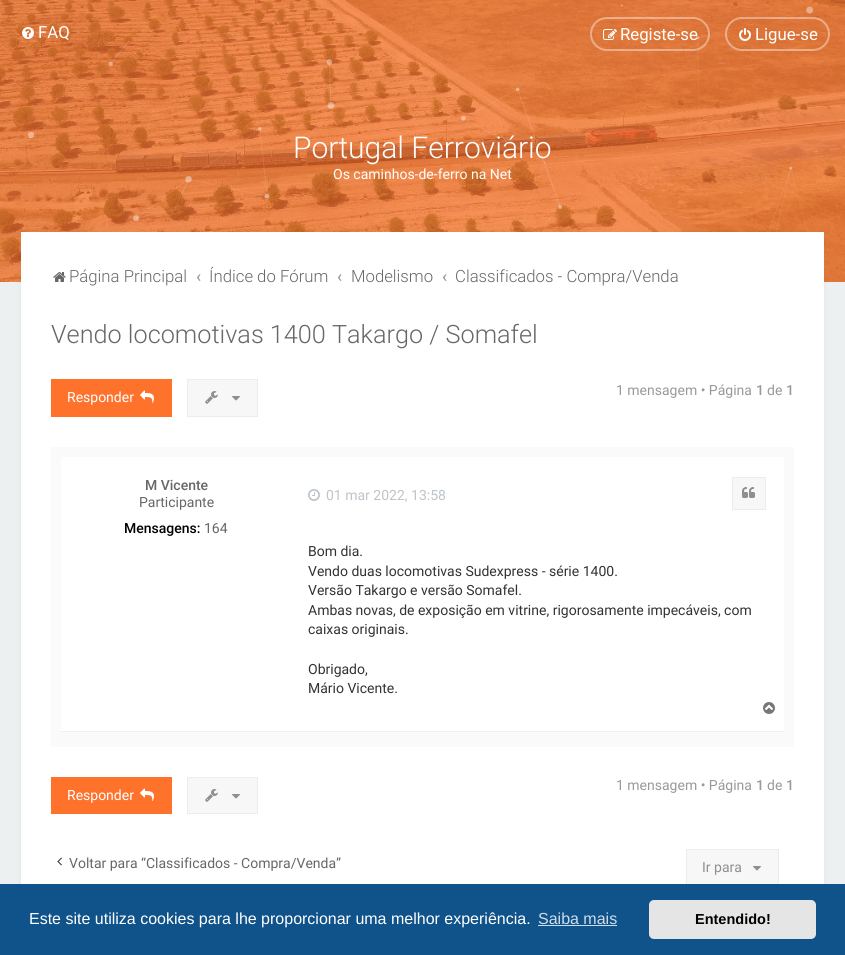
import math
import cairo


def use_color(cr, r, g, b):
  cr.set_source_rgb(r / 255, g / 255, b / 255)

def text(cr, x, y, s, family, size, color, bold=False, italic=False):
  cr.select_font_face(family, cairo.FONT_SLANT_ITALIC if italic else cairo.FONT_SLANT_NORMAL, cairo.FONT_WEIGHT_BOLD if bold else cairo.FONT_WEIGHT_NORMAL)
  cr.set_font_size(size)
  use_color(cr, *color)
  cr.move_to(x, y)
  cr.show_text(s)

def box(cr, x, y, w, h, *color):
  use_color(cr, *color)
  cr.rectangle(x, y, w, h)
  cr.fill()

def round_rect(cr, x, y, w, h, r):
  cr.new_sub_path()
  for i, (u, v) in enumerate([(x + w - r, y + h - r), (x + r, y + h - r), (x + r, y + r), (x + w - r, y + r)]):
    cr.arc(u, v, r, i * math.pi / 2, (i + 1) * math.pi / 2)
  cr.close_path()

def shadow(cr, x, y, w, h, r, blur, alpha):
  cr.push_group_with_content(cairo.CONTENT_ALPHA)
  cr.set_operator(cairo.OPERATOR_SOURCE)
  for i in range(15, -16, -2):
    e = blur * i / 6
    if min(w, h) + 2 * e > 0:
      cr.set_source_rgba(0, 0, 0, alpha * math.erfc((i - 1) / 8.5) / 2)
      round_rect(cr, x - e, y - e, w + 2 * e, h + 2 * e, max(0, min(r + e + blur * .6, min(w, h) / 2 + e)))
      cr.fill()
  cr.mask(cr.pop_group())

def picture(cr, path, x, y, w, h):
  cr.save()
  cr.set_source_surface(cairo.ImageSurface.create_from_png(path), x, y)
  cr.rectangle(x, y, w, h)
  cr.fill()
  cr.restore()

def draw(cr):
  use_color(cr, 236, 240, 241)
  cr.paint()
  picture(cr, "img_01.png", 0, 0, 845, 282)
  picture(cr, "img_05.png", 28, 4, 785, 228)
  picture(cr, "img_02.png", 22, 27, 12, 12)
  round_rect(cr, 591, 18, 118, 32, 16)
  cr.set_source_rgba(1, 1, 1, 0.4)
  cr.stroke()
  picture(cr, "img_03.png", 603, 29, 14, 11)
  round_rect(cr, 726, 18, 103, 32, 16)
  cr.stroke()
  picture(cr, "img_04.png", 739, 28, 12, 13)
  use_color(cr, 0, 0, 0)
  shadow(cr, 21, 232, 803, 720, 0, 2.5, 0.05)
  box(cr, 21, 232, 803, 652, 255, 255, 255)
  picture(cr, "img_06.png", 53, 272, 13, 10)
  box(cr, 51, 379, 121, 38, 255, 114, 43)
  picture(cr, "img_07.png", 140, 390, 14, 13)
  use_color(cr, 247, 247, 247)
  cr.rectangle(187.5, 379.5, 70, 37)
  cr.fill_preserve()
  use_color(cr, 237, 236, 236)
  cr.set_line_width(1)
  cr.stroke()
  picture(cr, "img_08.png", 205, 391, 13, 13)
  picture(cr, "img_09.png", 232, 396, 8, 5)
  box(cr, 51, 447, 743, 300, 250, 250, 250)
  box(cr, 61, 457, 723, 274, 255, 255, 255)
  box(cr, 61, 731, 723, 1, 236, 240, 241)
  picture(cr, "img_10.png", 308, 489, 12, 12)
  use_color(cr, 247, 247, 247)
  cr.rectangle(732.5, 477.5, 33, 32)
  cr.fill_preserve()
  use_color(cr, 237, 236, 236)
  cr.stroke()
  picture(cr, "img_11.png", 742, 487, 13, 11)
  picture(cr, "img_12.png", 763, 702, 12, 12)
  use_color(cr, 247, 247, 247)
  cr.rectangle(187.5, 777.5, 70, 36)
  cr.fill_preserve()
  use_color(cr, 237, 236, 236)
  cr.stroke()
  picture(cr, "img_08.png", 205, 789, 13, 13)
  picture(cr, "img_09.png", 232, 794, 8, 5)
  box(cr, 51, 777, 121, 37, 255, 114, 43)
  picture(cr, "img_07.png", 140, 788, 14, 13)
  picture(cr, "img_13.png", 57, 857, 5, 9)
  box(cr, 687, 850, 91, 34, 247, 247, 247)
  cr.rectangle(686.5, 849.5, 92, 37)
  use_color(cr, 237, 236, 236)
  cr.stroke()
  picture(cr, "img_09.png", 753, 866, 8, 5)
  box(cr, 0, 884, 845, 71, 15, 83, 138)
  box(cr, 538, 925, 79, 1, 207, 221, 232)
  use_color(cr, 229, 229, 229)
  round_rect(cr, 649, 900, 167, 39, 5)
  cr.fill()
  text(cr, 38, 38, "FAQ", "Roboto", 16.75, (255, 255, 255))
  text(cr, 620, 40, "Registe-se", "Roboto", 16.75, (255, 255, 255))
  text(cr, 755, 40, "Ligue-se", "Roboto", 16.75, (255, 255, 255))
  text(cr, 293, 158, "Portugal Ferroviário", "Roboto Light", 30, (255, 255, 255))
  text(cr, 333, 179, "Os caminhos-de-ferro na Net", "Roboto", 14, (255, 255, 255))
  text(cr, 69, 282, "Página Principal", "Roboto Light", 16.75, (103, 103, 103))
  text(cr, 196, 282, "‹", "Roboto Medium", 16.75, (153, 153, 153))
  text(cr, 209, 282, "Índice do Fórum", "Roboto Light", 16.75, (103, 103, 103))
  text(cr, 337, 282, "‹", "Roboto Medium", 16.75, (153, 153, 153))
  text(cr, 351, 282, "Modelismo", "Roboto Light", 16.75, (103, 103, 103))
  text(cr, 442, 282, "‹", "Roboto Medium", 16.75, (153, 153, 153))
  text(cr, 455, 282, "Classificados - Compra/Venda", "Roboto Light", 16.75, (103, 103, 103))
  text(cr, 51, 343, "Vendo locomotivas 1400 Takargo / Somafel", "Roboto Light", 25.25, (103, 103, 103))
  text(cr, 67, 402, "Responder", "Roboto", 14, (255, 255, 255))
  text(cr, 616, 395, "1 mensagem • Página", "Roboto", 14, (153, 153, 153))
  text(cr, 756, 395, "1", "Roboto Medium", 14, (153, 153, 153))
  text(cr, 767, 395, "de", "Roboto", 14, (153, 153, 153))
  text(cr, 786, 395, "1", "Roboto Medium", 14, (153, 153, 153))
  text(cr, 145, 490, "M Vicente", "Roboto Medium", 14, (103, 103, 103))
  text(cr, 139, 507, "Participante", "Roboto", 14, (103, 103, 103))
  text(cr, 124, 533, "Mensagens:", "Roboto Medium", 14, (0, 0, 0))
  text(cr, 204, 533, "164", "Roboto", 14, (103, 103, 103))
  text(cr, 326, 500, "01 mar 2022, 13:58", "Roboto", 14, (190, 196, 201))
  text(cr, 308, 556, "Bom dia.", "Roboto", 14, (51, 51, 51))
  text(cr, 308, 576, "Vendo duas locomotivas Sudexpress - série 1400.", "Roboto", 14, (51, 51, 51))
  text(cr, 308, 595, "Versão Takargo e versão Somafel.", "Roboto", 14, (51, 51, 51))
  text(cr, 308, 615, "Ambas novas, de exposição em vitrine, rigorosamente impecáveis, com", "Roboto", 14, (51, 51, 51))
  text(cr, 308, 634, "caixas originais.", "Roboto", 14, (51, 51, 51))
  text(cr, 308, 674, "Obrigado,", "Roboto", 14, (51, 51, 51))
  text(cr, 308, 693, "Mário Vicente.", "Roboto", 14, (51, 51, 51))
  text(cr, 616, 790, "1 mensagem • Página", "Roboto", 14, (153, 153, 153))
  text(cr, 756, 790, "1", "Roboto Medium", 14, (153, 153, 153))
  text(cr, 767, 790, "de", "Roboto", 14, (153, 153, 153))
  text(cr, 786, 790, "1", "Roboto Medium", 14, (153, 153, 153))
  text(cr, 67, 800, "Responder", "Roboto", 14, (255, 255, 255))
  text(cr, 69, 868, "Voltar para “Classificados - Compra/Venda”", "Roboto", 14, (103, 103, 103))
  text(cr, 702, 872, "Ir para", "Roboto", 14, (143, 143, 143))
  text(cr, 29, 924, "Este site utiliza cookies para lhe proporcionar uma melhor experiência.", "Liberation Sans", 16, (255, 255, 255))
  text(cr, 538, 924, "Saiba mais", "Liberation Sans", 16, (207, 221, 232))
  text(cr, 695, 924, "Entendido!", "Liberation Sans", 14.5, (0, 0, 0), bold=True)


surface = cairo.ImageSurface(cairo.FORMAT_RGB24, 845, 955)
cr = cairo.Context(surface)
options = cairo.FontOptions()
options.set_hint_metrics(cairo.HINT_METRICS_OFF)
options.set_hint_style(cairo.HINT_STYLE_NONE)
cr.set_font_options(options)
cr.set_miter_limit(4)
draw(cr)
surface.write_to_png("out.png")
